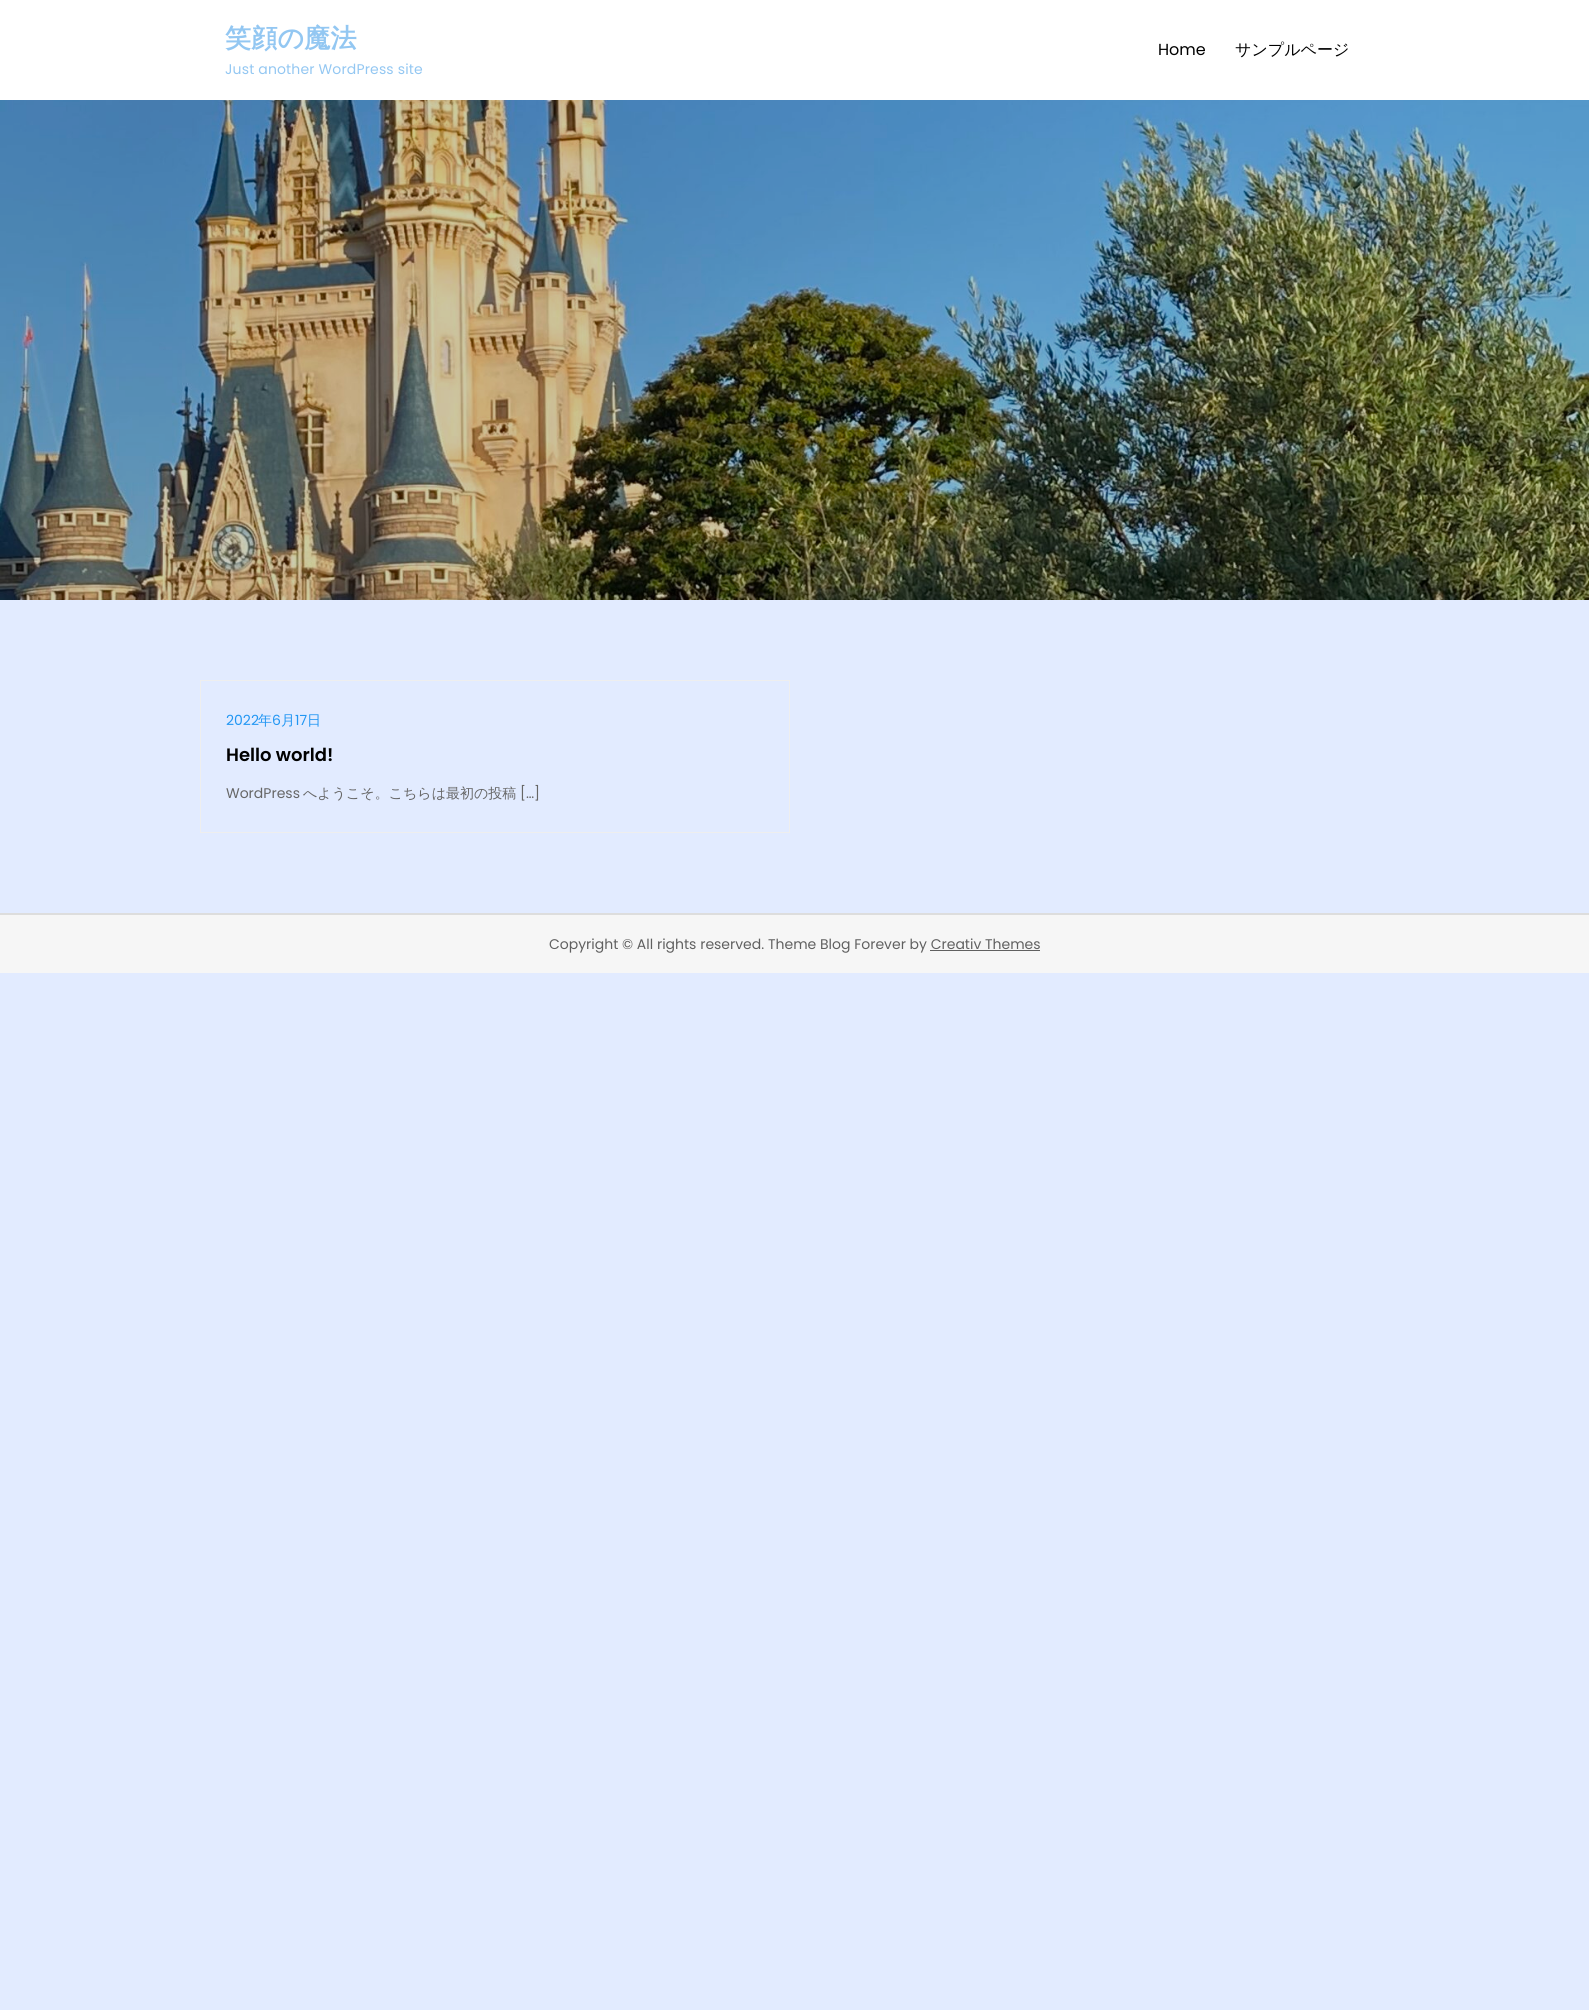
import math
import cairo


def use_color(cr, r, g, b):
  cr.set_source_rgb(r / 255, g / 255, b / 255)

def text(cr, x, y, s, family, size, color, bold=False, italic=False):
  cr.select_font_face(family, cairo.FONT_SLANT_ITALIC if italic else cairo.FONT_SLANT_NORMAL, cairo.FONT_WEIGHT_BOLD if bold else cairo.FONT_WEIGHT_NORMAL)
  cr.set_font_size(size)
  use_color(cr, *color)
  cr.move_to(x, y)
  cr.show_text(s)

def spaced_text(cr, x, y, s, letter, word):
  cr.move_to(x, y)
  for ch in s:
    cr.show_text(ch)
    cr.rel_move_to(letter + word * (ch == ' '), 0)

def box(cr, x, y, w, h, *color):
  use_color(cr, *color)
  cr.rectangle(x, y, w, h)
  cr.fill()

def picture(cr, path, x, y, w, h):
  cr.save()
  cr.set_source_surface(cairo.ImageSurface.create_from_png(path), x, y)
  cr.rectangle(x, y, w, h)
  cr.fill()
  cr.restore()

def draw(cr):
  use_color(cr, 226, 235, 255)
  cr.paint()
  box(cr, 0, 0, 1589, 100, 255, 255, 255)
  picture(cr, "img_01.png", 0, 100, 1589, 500)
  cr.rectangle(200.5, 680.5, 589, 152)
  use_color(cr, 238, 238, 238)
  cr.set_line_width(1)
  cr.stroke()
  box(cr, 0, 915, 1589, 58, 246, 246, 246)
  box(cr, 0, 913, 1589, 2, 221, 221, 221)
  box(cr, 930, 950, 110, 1, 96, 96, 96)
  cr.select_font_face("WenQuanYi Zen Hei", cairo.FONT_SLANT_NORMAL, cairo.FONT_WEIGHT_BOLD)
  cr.set_font_size(26)
  use_color(cr, 147, 199, 242)
  spaced_text(cr, 225, 47, "笑顔の魔法", 0.25, 0)
  cr.select_font_face("Poppins")
  cr.set_font_size(14)
  spaced_text(cr, 225, 74, "Just another WordPress site", 0.15, 0)
  text(cr, 1158, 55, "Home", "Poppins", 16, (0, 0, 0))
  text(cr, 1235, 55, "サンプルページ", "WenQuanYi Zen Hei Medium", 16, (0, 0, 0))
  text(cr, 226, 725, "2022", "Poppins", 14, (33, 150, 243))
  text(cr, 258, 725, "年", "WenQuanYi Zen Hei Medium", 14, (33, 150, 243))
  text(cr, 272, 725, "6", "Poppins", 14, (33, 150, 243))
  text(cr, 281, 725, "月", "WenQuanYi Zen Hei Medium", 14, (33, 150, 243))
  text(cr, 295, 725, "17", "Poppins", 14, (33, 150, 243))
  text(cr, 307, 725, "日", "WenQuanYi Zen Hei Medium", 14, (33, 150, 243))
  text(cr, 226, 761, "Hello world!", "Poppins SemiBold", 18, (0, 0, 0))
  text(cr, 226, 798, "WordPress", "Poppins", 14, (102, 102, 102))
  text(cr, 303, 798, "へようこそ。こちらは最初の投稿", "WenQuanYi Zen Hei Medium", 14, (102, 102, 102))
  text(cr, 520, 798, "[…]", "Poppins", 14, (102, 102, 102))
  text(cr, 549, 949, "Copyright © All rights reserved. Theme Blog Forever by Creativ Themes", "Poppins", 14, (96, 96, 96))


surface = cairo.ImageSurface(cairo.FORMAT_RGB24, 1589, 2010)
cr = cairo.Context(surface)
options = cairo.FontOptions()
options.set_hint_metrics(cairo.HINT_METRICS_OFF)
options.set_hint_style(cairo.HINT_STYLE_NONE)
cr.set_font_options(options)
cr.set_miter_limit(4)
draw(cr)
surface.write_to_png("out.png")
